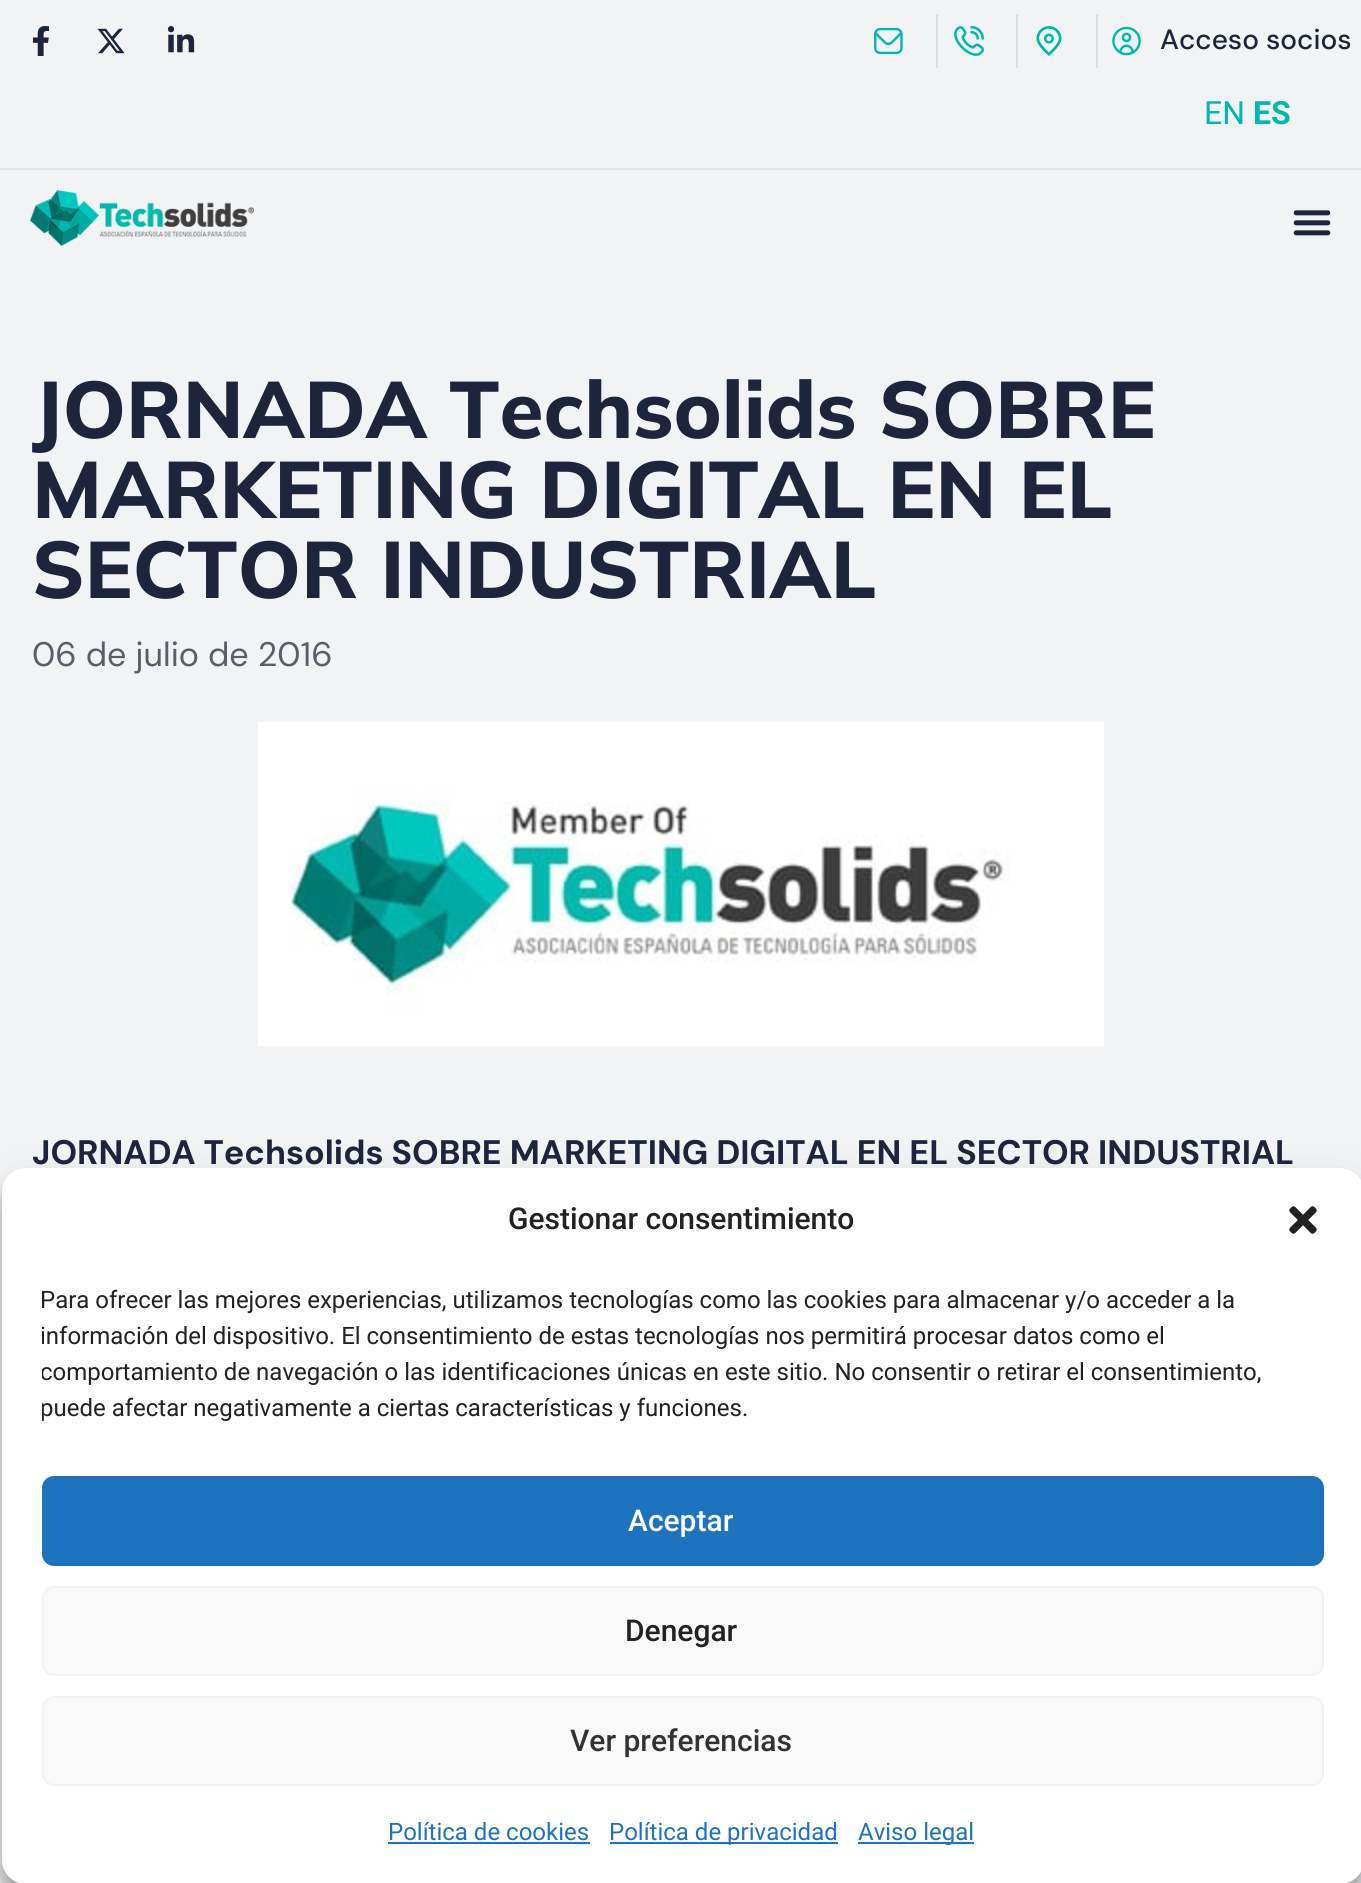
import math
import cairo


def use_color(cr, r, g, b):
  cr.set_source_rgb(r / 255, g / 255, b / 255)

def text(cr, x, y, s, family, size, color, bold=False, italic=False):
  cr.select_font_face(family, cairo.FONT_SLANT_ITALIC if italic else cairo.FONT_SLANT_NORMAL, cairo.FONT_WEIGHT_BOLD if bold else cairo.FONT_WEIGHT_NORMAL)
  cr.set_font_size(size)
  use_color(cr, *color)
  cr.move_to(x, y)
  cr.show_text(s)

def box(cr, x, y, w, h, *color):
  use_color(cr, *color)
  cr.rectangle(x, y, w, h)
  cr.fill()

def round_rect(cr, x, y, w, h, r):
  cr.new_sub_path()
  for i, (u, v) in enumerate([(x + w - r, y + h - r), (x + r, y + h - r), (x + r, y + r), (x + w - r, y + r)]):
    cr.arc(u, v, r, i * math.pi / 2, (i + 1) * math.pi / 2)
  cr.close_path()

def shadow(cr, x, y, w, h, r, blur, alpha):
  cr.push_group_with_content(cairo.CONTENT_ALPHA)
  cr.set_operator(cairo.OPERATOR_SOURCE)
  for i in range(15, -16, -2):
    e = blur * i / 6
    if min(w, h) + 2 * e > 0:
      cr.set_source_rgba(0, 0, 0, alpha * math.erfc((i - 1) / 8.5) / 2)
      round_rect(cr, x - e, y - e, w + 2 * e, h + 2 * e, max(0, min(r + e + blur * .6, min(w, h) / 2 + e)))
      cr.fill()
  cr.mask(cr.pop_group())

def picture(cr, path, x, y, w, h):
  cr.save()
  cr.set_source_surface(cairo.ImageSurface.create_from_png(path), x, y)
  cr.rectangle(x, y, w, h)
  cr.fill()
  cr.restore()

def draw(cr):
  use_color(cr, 241, 243, 245)
  cr.paint()
  box(cr, 0, 168, 1361, 2, 225, 228, 231)
  picture(cr, "img_01.png", 32, 26, 18, 30)
  picture(cr, "img_02.png", 97, 28, 28, 26)
  picture(cr, "img_03.png", 167, 26, 28, 27)
  picture(cr, "img_04.png", 874, 27, 29, 28)
  box(cr, 936, 14, 2, 54, 221, 221, 221)
  picture(cr, "img_05.png", 954, 26, 30, 30)
  box(cr, 1016, 14, 2, 54, 221, 221, 221)
  picture(cr, "img_06.png", 1036, 26, 26, 30)
  box(cr, 1096, 14, 2, 54, 221, 221, 221)
  picture(cr, "img_07.png", 1112, 26, 29, 30)
  picture(cr, "img_08.png", 30, 190, 224, 56)
  picture(cr, "img_09.png", 1293, 210, 38, 26)
  picture(cr, "img_10.png", 258, 722, 846, 324)
  use_color(cr, 0, 0, 0)
  shadow(cr, 2, 1180, 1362, 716, 24, 6, 0.23)
  shadow(cr, 2, 1188, 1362, 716, 24, 20, 0.19)
  use_color(cr, 255, 255, 255)
  round_rect(cr, 2, 1168, 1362, 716, 24)
  cr.fill()
  picture(cr, "img_11.png", 1289, 1206, 28, 28)
  use_color(cr, 30, 115, 190)
  round_rect(cr, 43, 1477, 1280, 88, 11)
  cr.fill_preserve()
  cr.stroke()
  use_color(cr, 249, 249, 249)
  round_rect(cr, 43, 1587, 1280, 88, 11)
  cr.fill_preserve()
  use_color(cr, 242, 242, 242)
  cr.stroke()
  use_color(cr, 249, 249, 249)
  round_rect(cr, 43, 1697, 1280, 88, 11)
  cr.fill_preserve()
  use_color(cr, 242, 242, 242)
  cr.stroke()
  box(cr, 388, 1842, 202, 2, 30, 115, 190)
  box(cr, 610, 1842, 228, 2, 30, 115, 190)
  box(cr, 858, 1842, 116, 2, 30, 115, 190)
  text(cr, 1160, 49, "Acceso socios", "DM Sans Medium", 28, (29, 36, 60))
  text(cr, 1204, 124, "EN", "Roboto", 32, (0, 185, 172))
  text(cr, 1253, 124, "ES", "Roboto", 32, (0, 185, 172), bold=True)
  text(cr, 32, 438, "JORNADA Techsolids SOBRE", "Mulish ExtraBold", 80, (29, 36, 60))
  text(cr, 32, 518, "MARKETING DIGITAL EN EL", "Mulish ExtraBold", 80, (29, 36, 60))
  text(cr, 32, 598, "SECTOR INDUSTRIAL", "Mulish ExtraBold", 80, (29, 36, 60))
  text(cr, 32, 666, "06 de julio de 2016", "DM Sans", 34, (89, 95, 105))
  text(cr, 32, 1164, "JORNADA Techsolids SOBRE MARKETING DIGITAL EN EL SECTOR INDUSTRIAL", "DM Sans", 34, (29, 36, 60), bold=True)
  text(cr, 508, 1229, "Gestionar consentimiento", "Roboto Medium", 30, (34, 34, 34))
  text(cr, 40, 1308, "Para ofrecer las mejores experiencias, utilizamos tecnologías como las cookies para almacenar y/o acceder a la", "Roboto", 24, (34, 34, 34))
  cr.save()
  cr.rectangle(42, 1282, 1282, 154)
  cr.clip()
  text(cr, 40, 1344, "información del dispositivo. El consentimiento de estas tecnologías nos permitirá procesar datos como el", "Roboto", 24, (34, 34, 34))
  text(cr, 40, 1380, "comportamiento de navegación o las identificaciones únicas en este sitio. No consentir o retirar el consentimiento,", "Roboto", 24, (34, 34, 34))
  text(cr, 40, 1416, "puede afectar negativamente a ciertas características y funciones.", "Roboto", 24, (34, 34, 34))
  cr.restore()
  text(cr, 628, 1531, "Aceptar", "Roboto Medium", 30, (255, 255, 255))
  text(cr, 625, 1641, "Denegar", "Roboto Medium", 30, (34, 34, 34))
  text(cr, 570, 1751, "Ver preferencias", "Roboto Medium", 30, (51, 51, 51))
  text(cr, 388, 1840, "Política de cookies", "Roboto", 24, (30, 115, 190))
  text(cr, 609, 1840, "Política de privacidad", "Roboto", 24, (30, 115, 190))
  text(cr, 858, 1840, "Aviso legal", "Roboto", 24, (30, 115, 190))


surface = cairo.ImageSurface(cairo.FORMAT_RGB24, 1361, 1883)
cr = cairo.Context(surface)
options = cairo.FontOptions()
options.set_hint_metrics(cairo.HINT_METRICS_OFF)
options.set_hint_style(cairo.HINT_STYLE_NONE)
cr.set_font_options(options)
cr.set_miter_limit(4)
draw(cr)
surface.write_to_png("out.png")
